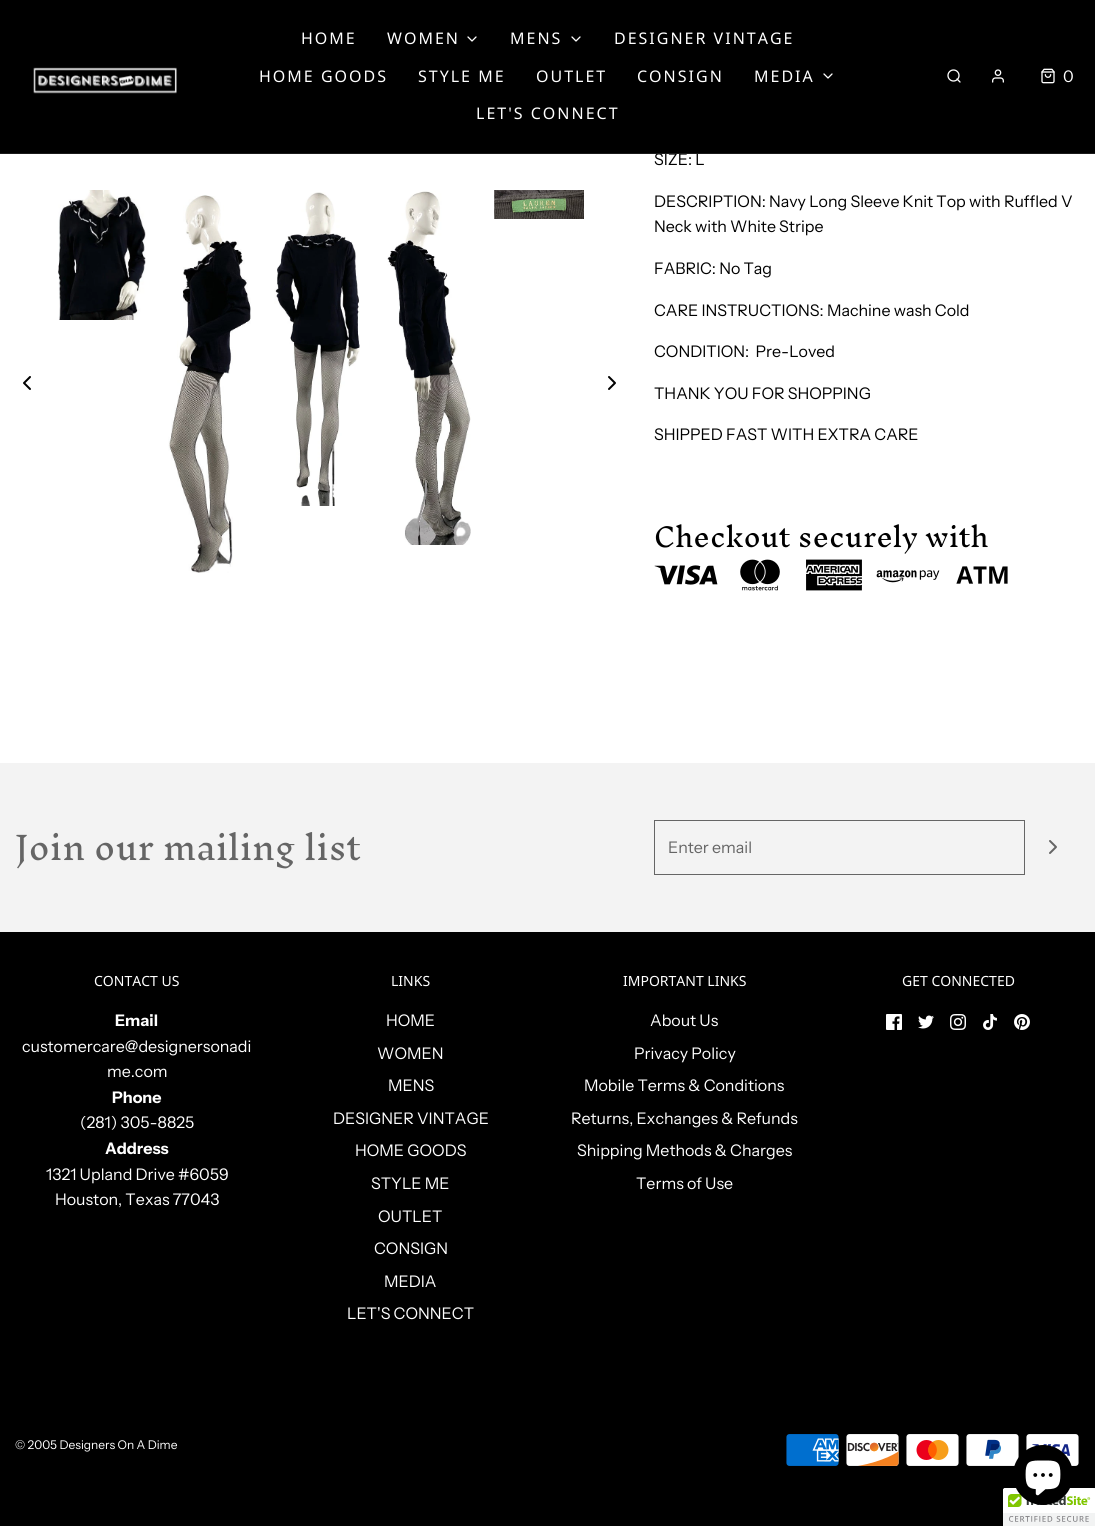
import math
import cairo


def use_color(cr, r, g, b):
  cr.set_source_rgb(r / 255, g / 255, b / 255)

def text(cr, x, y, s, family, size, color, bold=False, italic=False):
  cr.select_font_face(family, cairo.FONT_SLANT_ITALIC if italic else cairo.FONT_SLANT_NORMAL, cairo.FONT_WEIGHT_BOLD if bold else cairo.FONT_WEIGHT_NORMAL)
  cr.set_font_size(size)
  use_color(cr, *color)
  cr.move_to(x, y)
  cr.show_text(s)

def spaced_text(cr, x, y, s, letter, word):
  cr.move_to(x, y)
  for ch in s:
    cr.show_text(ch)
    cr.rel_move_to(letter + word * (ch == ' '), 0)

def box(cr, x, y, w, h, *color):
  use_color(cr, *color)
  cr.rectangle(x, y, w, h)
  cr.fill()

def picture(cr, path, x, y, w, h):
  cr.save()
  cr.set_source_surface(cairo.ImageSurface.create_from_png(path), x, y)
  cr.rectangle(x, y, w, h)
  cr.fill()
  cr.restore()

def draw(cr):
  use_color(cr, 255, 255, 255)
  cr.paint()
  box(cr, 0, 0, 1095, 153, 0, 0, 0)
  picture(cr, "img_01.png", 33, 67, 144, 27)
  cr.new_path()
  cr.move_to(468, 37)
  cr.line_to(472, 41)
  cr.line_to(476, 37)
  use_color(cr, 255, 255, 255)
  cr.set_line_width(1.3)
  cr.set_line_cap(cairo.LINE_CAP_ROUND)
  cr.set_line_join(cairo.LINE_JOIN_ROUND)
  cr.stroke()
  cr.new_path()
  cr.move_to(572, 37)
  cr.line_to(576, 41)
  cr.line_to(580, 37)
  cr.stroke()
  cr.new_path()
  cr.move_to(824, 74)
  cr.line_to(828, 78)
  cr.line_to(832, 74)
  cr.stroke()
  cr.arc(953.5, 75.5, 5.5, 0, 2 * math.pi)
  cr.set_line_cap(cairo.LINE_CAP_BUTT)
  cr.set_line_join(cairo.LINE_JOIN_MITER)
  cr.stroke()
  cr.new_path()
  cr.move_to(960, 82)
  cr.line_to(957, 79)
  cr.set_line_cap(cairo.LINE_CAP_ROUND)
  cr.set_line_join(cairo.LINE_JOIN_ROUND)
  cr.stroke()
  picture(cr, "img_02.png", 992, 69, 12, 14)
  picture(cr, "img_03.png", 1041, 68, 14, 16)
  cr.new_path()
  cr.move_to(30, 389)
  cr.line_to(24, 383)
  cr.line_to(30, 377)
  use_color(cr, 0, 0, 0)
  cr.set_line_width(2)
  cr.stroke()
  picture(cr, "img_04.png", 58, 190, 88, 130)
  picture(cr, "img_05.png", 168, 195, 83, 378)
  picture(cr, "img_06.png", 274, 192, 86, 314)
  picture(cr, "img_07.png", 387, 191, 84, 354)
  picture(cr, "img_08.png", 494, 190, 90, 29)
  cr.new_path()
  cr.move_to(609, 389)
  cr.line_to(615, 383)
  cr.line_to(609, 377)
  cr.stroke()
  picture(cr, "img_09.png", 654, 565, 64, 20)
  picture(cr, "img_10.png", 740, 559, 40, 32)
  picture(cr, "img_11.png", 806, 559, 56, 32)
  picture(cr, "img_12.png", 876, 570, 64, 13)
  picture(cr, "img_13.png", 956, 566, 52, 18)
  box(cr, 0, 763, 1095, 169, 243, 243, 243)
  cr.rectangle(654.5, 820.5, 370, 54)
  use_color(cr, 101, 101, 101)
  cr.set_line_width(1)
  cr.set_line_cap(cairo.LINE_CAP_BUTT)
  cr.set_line_join(cairo.LINE_JOIN_MITER)
  cr.stroke()
  cr.new_path()
  cr.move_to(1050, 853)
  cr.line_to(1056, 847)
  cr.line_to(1050, 841)
  cr.set_line_width(2)
  cr.set_line_cap(cairo.LINE_CAP_ROUND)
  cr.set_line_join(cairo.LINE_JOIN_ROUND)
  cr.stroke()
  box(cr, 0, 932, 1095, 594, 0, 0, 0)
  picture(cr, "img_14.png", 886, 1014, 16, 16)
  picture(cr, "img_15.png", 918, 1015, 16, 14)
  picture(cr, "img_16.png", 950, 1014, 16, 16)
  picture(cr, "img_17.png", 983, 1014, 14, 16)
  picture(cr, "img_18.png", 1014, 1014, 16, 16)
  picture(cr, "img_19.png", 786, 1434, 53, 32)
  picture(cr, "img_20.png", 846, 1434, 53, 32)
  picture(cr, "img_21.png", 906, 1434, 53, 32)
  picture(cr, "img_22.png", 966, 1434, 53, 32)
  picture(cr, "img_23.png", 1026, 1434, 53, 32)
  use_color(cr, 255, 255, 255)
  cr.new_path()
  cr.move_to(1005, 1488)
  cr.line_to(1095, 1488)
  cr.line_to(1095, 1526)
  cr.line_to(1003, 1526)
  cr.line_to(1003, 1490)
  cr.curve_to(1003, 1489, 1004, 1488, 1005, 1488)
  cr.close_path()
  cr.fill()
  picture(cr, "img_25.png", 1003, 1488, 92, 38)
  use_color(cr, 0, 0, 0)
  cr.arc(1043, 1475, 30, 0, 2 * math.pi)
  cr.fill()
  picture(cr, "img_24.png", 1025, 1460, 36, 36)
  cr.select_font_face("Noto Sans")
  cr.set_font_size(16)
  use_color(cr, 255, 255, 255)
  spaced_text(cr, 301, 44, "HOME", 2, 0)
  spaced_text(cr, 387, 44, "WOMEN", 2, 0)
  spaced_text(cr, 510, 44, "MENS", 2, 0)
  spaced_text(cr, 614, 44, "DESIGNER VINTAGE", 2, 0)
  spaced_text(cr, 259, 82, "HOME GOODS", 2, 0)
  spaced_text(cr, 418, 82, "STYLE ME", 2, 0)
  spaced_text(cr, 536, 82, "OUTLET", 2, 0)
  spaced_text(cr, 637, 82, "CONSIGN", 2, 0)
  spaced_text(cr, 754, 82, "MEDIA", 2, 0)
  spaced_text(cr, 476, 119, "LET'S CONNECT", 2, 0)
  text(cr, 1063, 82, "0", "Instrument Sans", 16, (255, 255, 255))
  text(cr, 654, 165, "SIZE: L", "Instrument Sans", 16, (0, 0, 0))
  box(cr, 0, 153, 1095, 1, 26, 26, 26)
  text(cr, 654, 207, "DESCRIPTION: Navy Long Sleeve Knit Top with Ruffled V", "Instrument Sans", 16, (0, 0, 0))
  text(cr, 654, 232, "Neck with White Stripe", "Instrument Sans", 16, (0, 0, 0))
  text(cr, 654, 274, "FABRIC: No Tag", "Instrument Sans", 16, (0, 0, 0))
  text(cr, 654, 316, "CARE INSTRUCTIONS: Machine wash Cold", "Instrument Sans", 16, (0, 0, 0))
  text(cr, 654, 357, "CONDITION:  Pre-Loved", "Instrument Sans", 16, (0, 0, 0))
  text(cr, 654, 399, "THANK YOU FOR SHOPPING", "Instrument Sans", 16, (0, 0, 0))
  text(cr, 654, 440, "SHIPPED FAST WITH EXTRA CARE", "Instrument Sans", 16, (0, 0, 0))
  text(cr, 654, 547, "Checkout securely with", "Inknut Antiqua Light", 26, (0, 0, 0))
  text(cr, 15, 860, "Join our mailing list", "Inknut Antiqua Light", 32, (101, 101, 101))
  text(cr, 668, 853, "Enter email", "Instrument Sans", 16, (101, 101, 101))
  text(cr, 94, 986, "CONTACT US", "Noto Sans", 14, (255, 255, 255))
  text(cr, 115, 1026, "Email", "Instrument Sans", 16, (255, 255, 255), bold=True)
  text(cr, 22, 1052, "customercare@designersonadi", "Instrument Sans", 16, (255, 255, 255))
  text(cr, 107, 1077, "me.com", "Instrument Sans", 16, (255, 255, 255))
  text(cr, 112, 1103, "Phone", "Instrument Sans", 16, (255, 255, 255), bold=True)
  text(cr, 80, 1128, "(281) 305-8825", "Instrument Sans", 16, (255, 255, 255))
  text(cr, 105, 1154, "Address", "Instrument Sans", 16, (255, 255, 255), bold=True)
  text(cr, 46, 1180, "1321 Upland Drive #6059", "Instrument Sans", 16, (255, 255, 255))
  text(cr, 55, 1205, "Houston, Texas 77043", "Instrument Sans", 16, (255, 255, 255))
  text(cr, 391, 986, "LINKS", "Noto Sans", 14, (255, 255, 255))
  text(cr, 386, 1026, "HOME", "Instrument Sans", 16, (255, 255, 255))
  text(cr, 377, 1059, "WOMEN", "Instrument Sans", 16, (255, 255, 255))
  text(cr, 388, 1091, "MENS", "Instrument Sans", 16, (255, 255, 255))
  text(cr, 333, 1124, "DESIGNER VINTAGE", "Instrument Sans", 16, (255, 255, 255))
  text(cr, 355, 1156, "HOME GOODS", "Instrument Sans", 16, (255, 255, 255))
  text(cr, 371, 1189, "STYLE ME", "Instrument Sans", 16, (255, 255, 255))
  text(cr, 378, 1222, "OUTLET", "Instrument Sans", 16, (255, 255, 255))
  text(cr, 374, 1254, "CONSIGN", "Instrument Sans", 16, (255, 255, 255))
  text(cr, 384, 1287, "MEDIA", "Instrument Sans", 16, (255, 255, 255))
  text(cr, 347, 1319, "LET'S CONNECT", "Instrument Sans", 16, (255, 255, 255))
  text(cr, 623, 986, "IMPORTANT LINKS", "Noto Sans", 14, (255, 255, 255))
  text(cr, 650, 1026, "About Us", "Instrument Sans", 16, (255, 255, 255))
  text(cr, 634, 1059, "Privacy Policy", "Instrument Sans", 16, (255, 255, 255))
  text(cr, 584, 1091, "Mobile Terms & Conditions", "Instrument Sans", 16, (255, 255, 255))
  text(cr, 571, 1124, "Returns, Exchanges & Refunds", "Instrument Sans", 16, (255, 255, 255))
  text(cr, 577, 1156, "Shipping Methods & Charges", "Instrument Sans", 16, (255, 255, 255))
  text(cr, 636, 1189, "Terms of Use", "Instrument Sans", 16, (255, 255, 255))
  text(cr, 902, 986, "GET CONNECTED", "Noto Sans", 14, (255, 255, 255))
  text(cr, 15, 1449, "© 2005 Designers On A Dime", "Instrument Sans", 12, (255, 255, 255))


surface = cairo.ImageSurface(cairo.FORMAT_RGB24, 1095, 1526)
cr = cairo.Context(surface)
options = cairo.FontOptions()
options.set_hint_metrics(cairo.HINT_METRICS_OFF)
options.set_hint_style(cairo.HINT_STYLE_NONE)
cr.set_font_options(options)
cr.set_miter_limit(4)
draw(cr)
surface.write_to_png("out.png")
